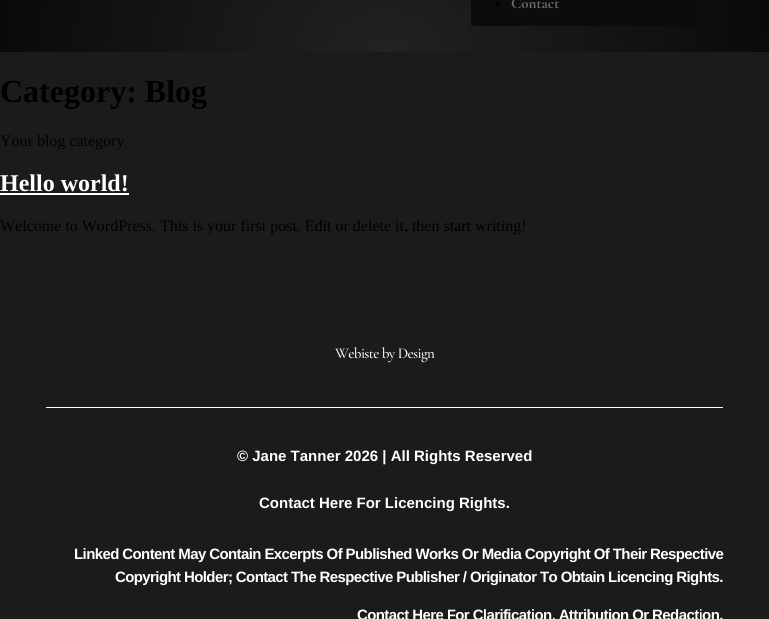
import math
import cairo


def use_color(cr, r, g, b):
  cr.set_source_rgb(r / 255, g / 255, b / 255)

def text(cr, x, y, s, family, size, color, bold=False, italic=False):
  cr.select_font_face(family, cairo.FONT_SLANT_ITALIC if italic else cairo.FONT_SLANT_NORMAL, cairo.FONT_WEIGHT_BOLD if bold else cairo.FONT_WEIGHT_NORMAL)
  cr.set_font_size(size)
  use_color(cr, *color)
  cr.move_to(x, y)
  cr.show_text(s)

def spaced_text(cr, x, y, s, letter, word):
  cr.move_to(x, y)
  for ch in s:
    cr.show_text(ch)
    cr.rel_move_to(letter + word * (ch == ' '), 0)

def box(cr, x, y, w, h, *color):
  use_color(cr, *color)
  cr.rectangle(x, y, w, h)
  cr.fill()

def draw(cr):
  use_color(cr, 27, 27, 27)
  cr.paint()
  gradient = cairo.RadialGradient(0, 0, 0, 0, 0, 1)
  gradient.set_matrix(cairo.Matrix(1 / 544, 0, 0, 1 / 399, -1 * 385 / 544, -1 * 52 / 399))
  gradient.add_color_stop_rgba(0, 0.133, 0.133, 0.133, 1)
  gradient.add_color_stop_rgba(1, 0, 0, 0, 1)
  cr.set_source(gradient)
  cr.rectangle(0, 0, 769, 52)
  cr.fill()
  box(cr, 471, 0, 225, 26, 12, 12, 12)
  use_color(cr, 0, 0, 0)
  cr.arc(497.5, 3.5, 2.5, 0, 2 * math.pi)
  cr.fill()
  box(cr, 0, 193, 129, 2, 255, 255, 255)
  box(cr, 46, 407, 677, 1, 255, 255, 255)
  text(cr, 511, 8, "Contact", "Cormorant Garamond", 15, (109, 109, 109), bold=True)
  text(cr, 0, 102, "Category: Blog", "Liberation Serif", 32, (0, 0, 0), bold=True)
  text(cr, 0, 146, "Your blog category", "Liberation Serif", 16, (0, 0, 0))
  text(cr, 0, 191, "Hello world!", "Liberation Serif", 24, (255, 255, 255), bold=True)
  text(cr, 0, 231, "Welcome to WordPress. This is your first post. Edit or delete it, then start writing!", "Liberation Serif", 16, (0, 0, 0))
  cr.select_font_face("Cormorant Garamond Medium")
  cr.set_font_size(15)
  use_color(cr, 255, 255, 255)
  spaced_text(cr, 335, 358, "Webiste by Design", -0.6, 0)
  text(cr, 237, 461, "© Jane Tanner 2026 | All Rights Reserved", "Liberation Sans", 15, (255, 255, 255), bold=True)
  text(cr, 259, 508, "Contact Here For Licencing Rights.", "Liberation Sans", 15, (255, 255, 255), bold=True)
  spaced_text(cr, 74, 559, "Linked Content May Contain Excerpts Of Published Works Or Media Copyright Of Their Respective", -0.6, 0)
  spaced_text(cr, 115, 582, "Copyright Holder; Contact The Respective Publisher / Originator To Obtain Licencing Rights.", -0.6, 0)
  spaced_text(cr, 357, 620, "Contact Here For Clarification, Attribution Or Redaction.", -0.6, 0)


surface = cairo.ImageSurface(cairo.FORMAT_RGB24, 769, 619)
cr = cairo.Context(surface)
options = cairo.FontOptions()
options.set_hint_metrics(cairo.HINT_METRICS_OFF)
options.set_hint_style(cairo.HINT_STYLE_NONE)
cr.set_font_options(options)
cr.set_miter_limit(4)
draw(cr)
surface.write_to_png("out.png")
